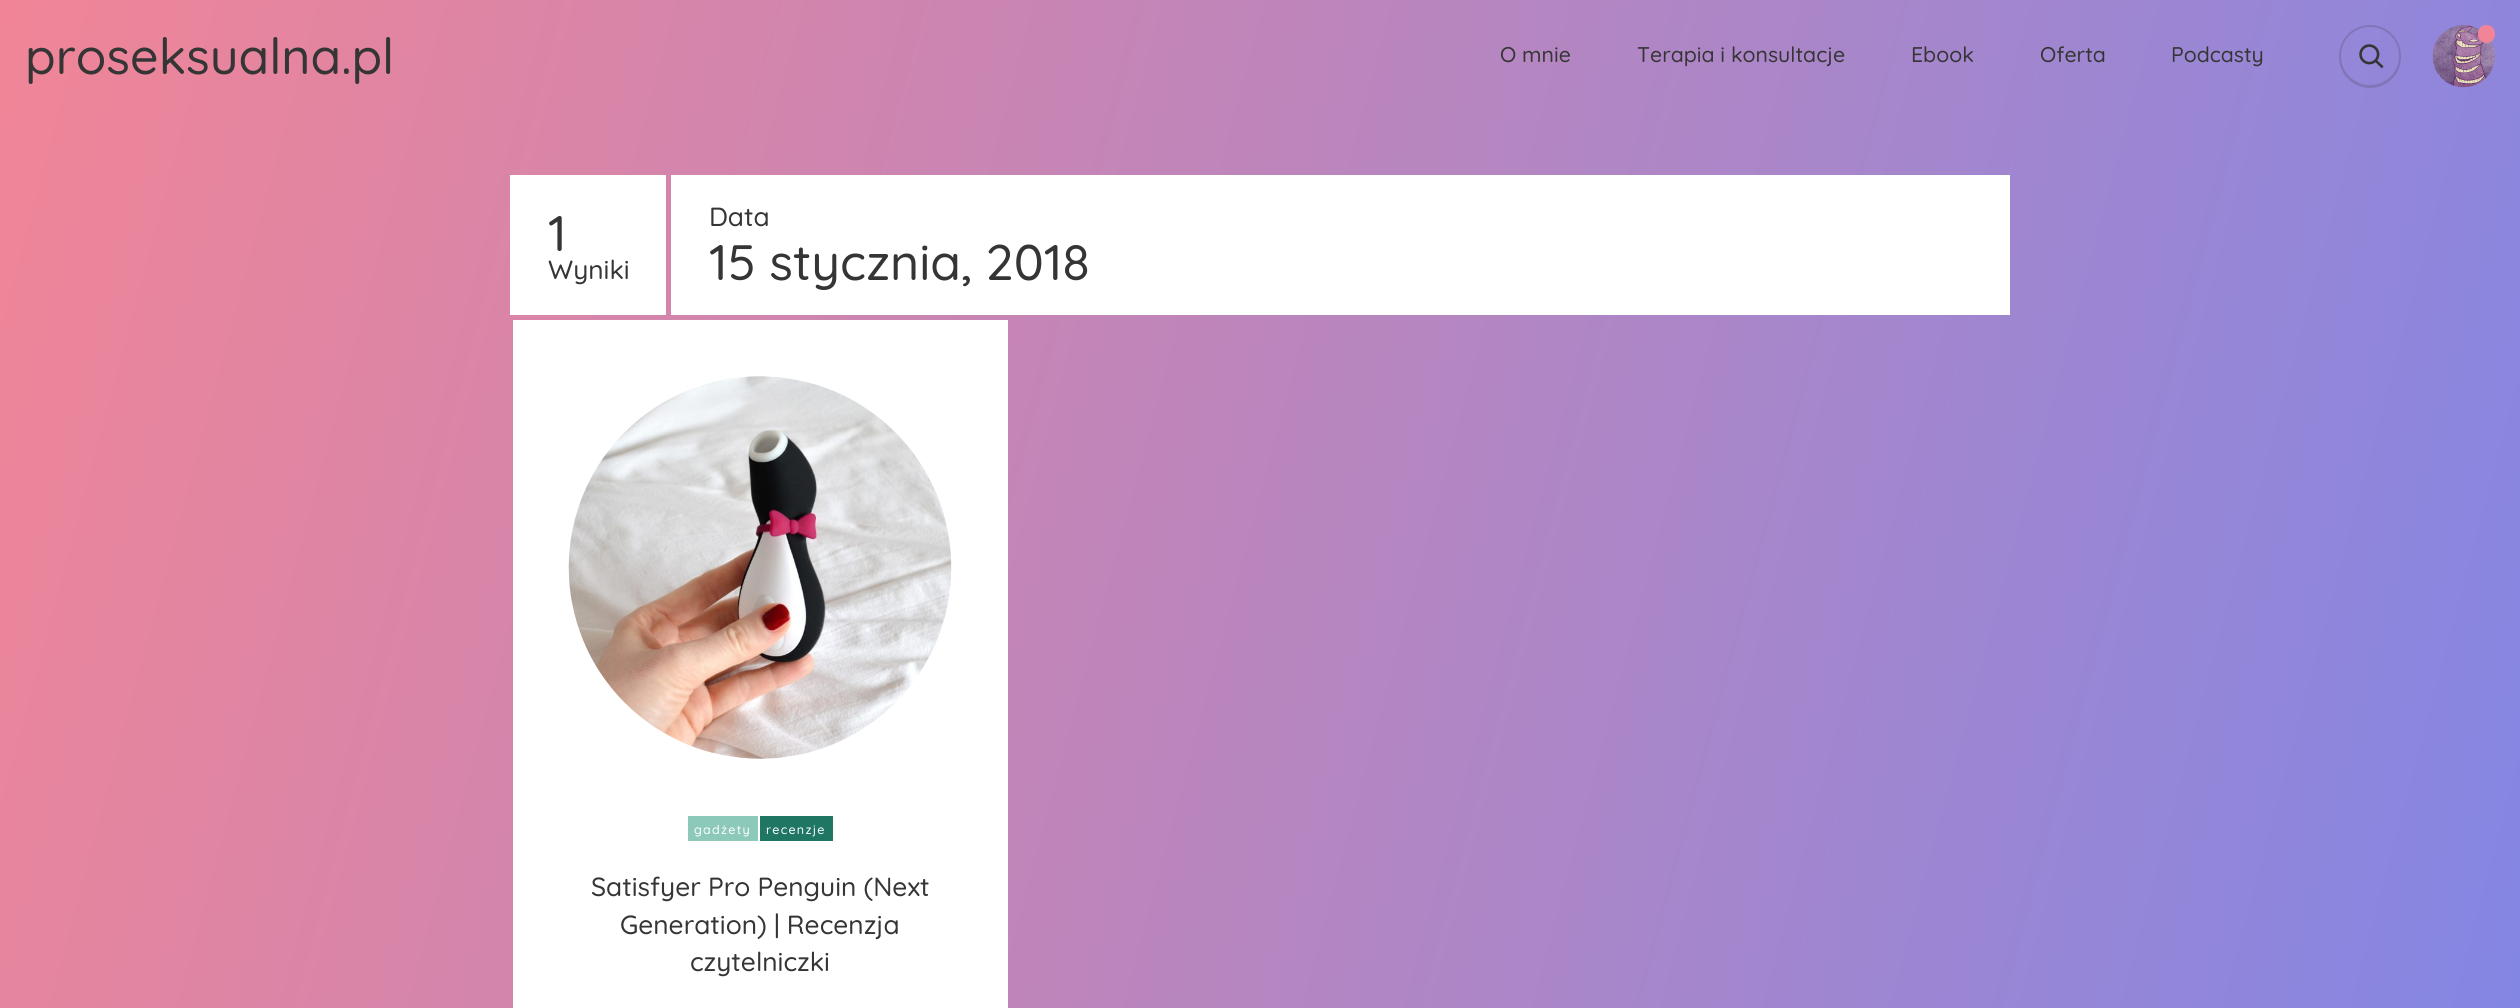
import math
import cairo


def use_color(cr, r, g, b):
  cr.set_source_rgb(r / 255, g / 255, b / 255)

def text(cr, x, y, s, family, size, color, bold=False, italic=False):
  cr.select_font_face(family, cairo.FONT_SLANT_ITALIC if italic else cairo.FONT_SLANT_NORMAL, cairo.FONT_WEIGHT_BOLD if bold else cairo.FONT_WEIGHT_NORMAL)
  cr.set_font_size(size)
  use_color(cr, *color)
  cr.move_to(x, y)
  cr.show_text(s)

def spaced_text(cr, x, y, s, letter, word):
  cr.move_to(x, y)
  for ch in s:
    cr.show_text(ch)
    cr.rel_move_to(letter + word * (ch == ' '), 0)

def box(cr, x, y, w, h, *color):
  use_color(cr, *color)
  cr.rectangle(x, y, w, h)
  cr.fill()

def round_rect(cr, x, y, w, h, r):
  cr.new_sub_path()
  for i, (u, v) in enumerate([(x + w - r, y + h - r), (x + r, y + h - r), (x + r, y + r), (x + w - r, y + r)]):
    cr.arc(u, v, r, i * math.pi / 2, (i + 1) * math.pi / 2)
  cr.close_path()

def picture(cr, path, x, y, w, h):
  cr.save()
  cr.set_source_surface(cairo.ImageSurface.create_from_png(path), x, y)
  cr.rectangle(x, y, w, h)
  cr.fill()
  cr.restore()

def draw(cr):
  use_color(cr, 255, 255, 255)
  cr.paint()
  gradient = cairo.LinearGradient(-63, 234, 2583, 943)
  gradient.add_color_stop_rgba(0, 0.945, 0.522, 0.592, 1)
  gradient.add_color_stop_rgba(1, 0.51, 0.525, 0.898, 1)
  cr.set_source(gradient)
  cr.rectangle(0, 0, 2520, 1008)
  cr.fill()
  cr.save()
  round_rect(cr, 2339, 25, 62, 63, 31)
  cr.clip()
  cr.arc(2370, 56, 31, 0, 2 * math.pi)
  cr.set_source_rgba(0.208, 0.208, 0.208, 0.2)
  cr.set_line_width(3.8)
  cr.stroke()
  cr.restore()
  picture(cr, "img_01.png", 2359, 44, 25, 25)
  picture(cr, "img_02.png", 2432, 25, 63, 63)
  use_color(cr, 241, 133, 151)
  round_rect(cr, 2478, 25, 17, 18, 8.5)
  cr.fill()
  box(cr, 510, 175, 156, 140, 255, 255, 255)
  box(cr, 671, 175, 1339, 140, 255, 255, 255)
  box(cr, 513, 320, 495, 688, 255, 255, 255)
  picture(cr, "img_03.png", 568, 376, 384, 383)
  box(cr, 688, 816, 70, 25, 140, 201, 187)
  box(cr, 760, 816, 73, 25, 31, 119, 99)
  text(cr, 25, 74, "proseksualna.pl", "Quicksand Medium", 50, (53, 53, 53))
  text(cr, 1500, 62, "O mnie", "Quicksand Medium", 21.25, (53, 53, 53))
  text(cr, 1637, 62, "Terapia i konsultacje", "Quicksand Medium", 21.25, (53, 53, 53))
  text(cr, 1911, 62, "Ebook", "Quicksand Medium", 21.25, (53, 53, 53))
  text(cr, 2040, 62, "Oferta", "Quicksand Medium", 21.25, (53, 53, 53))
  text(cr, 2171, 62, "Podcasty", "Quicksand Medium", 21.25, (53, 53, 53))
  text(cr, 548, 251, "1", "Quicksand Medium", 50, (53, 53, 53))
  text(cr, 548, 279, "Wyniki", "Quicksand Medium", 26.25, (53, 53, 53))
  text(cr, 709, 226, "Data", "Quicksand Medium", 26.25, (53, 53, 53))
  text(cr, 709, 280, "15 stycznia, 2018", "Quicksand Medium", 50, (53, 53, 53))
  cr.set_font_size(12.5)
  use_color(cr, 255, 255, 255)
  spaced_text(cr, 694, 834, "gadżety", 1.25, 0)
  spaced_text(cr, 766, 834, "recenzje", 1.25, 0)
  text(cr, 591, 896, "Satisfyer Pro Penguin (Next", "Quicksand Medium", 26.25, (53, 53, 53))
  text(cr, 620, 934, "Generation) | Recenzja", "Quicksand Medium", 26.25, (53, 53, 53))
  text(cr, 690, 971, "czytelniczki", "Quicksand Medium", 26.25, (53, 53, 53))


surface = cairo.ImageSurface(cairo.FORMAT_RGB24, 2520, 1008)
cr = cairo.Context(surface)
options = cairo.FontOptions()
options.set_hint_metrics(cairo.HINT_METRICS_OFF)
options.set_hint_style(cairo.HINT_STYLE_NONE)
cr.set_font_options(options)
cr.set_miter_limit(4)
draw(cr)
surface.write_to_png("out.png")
